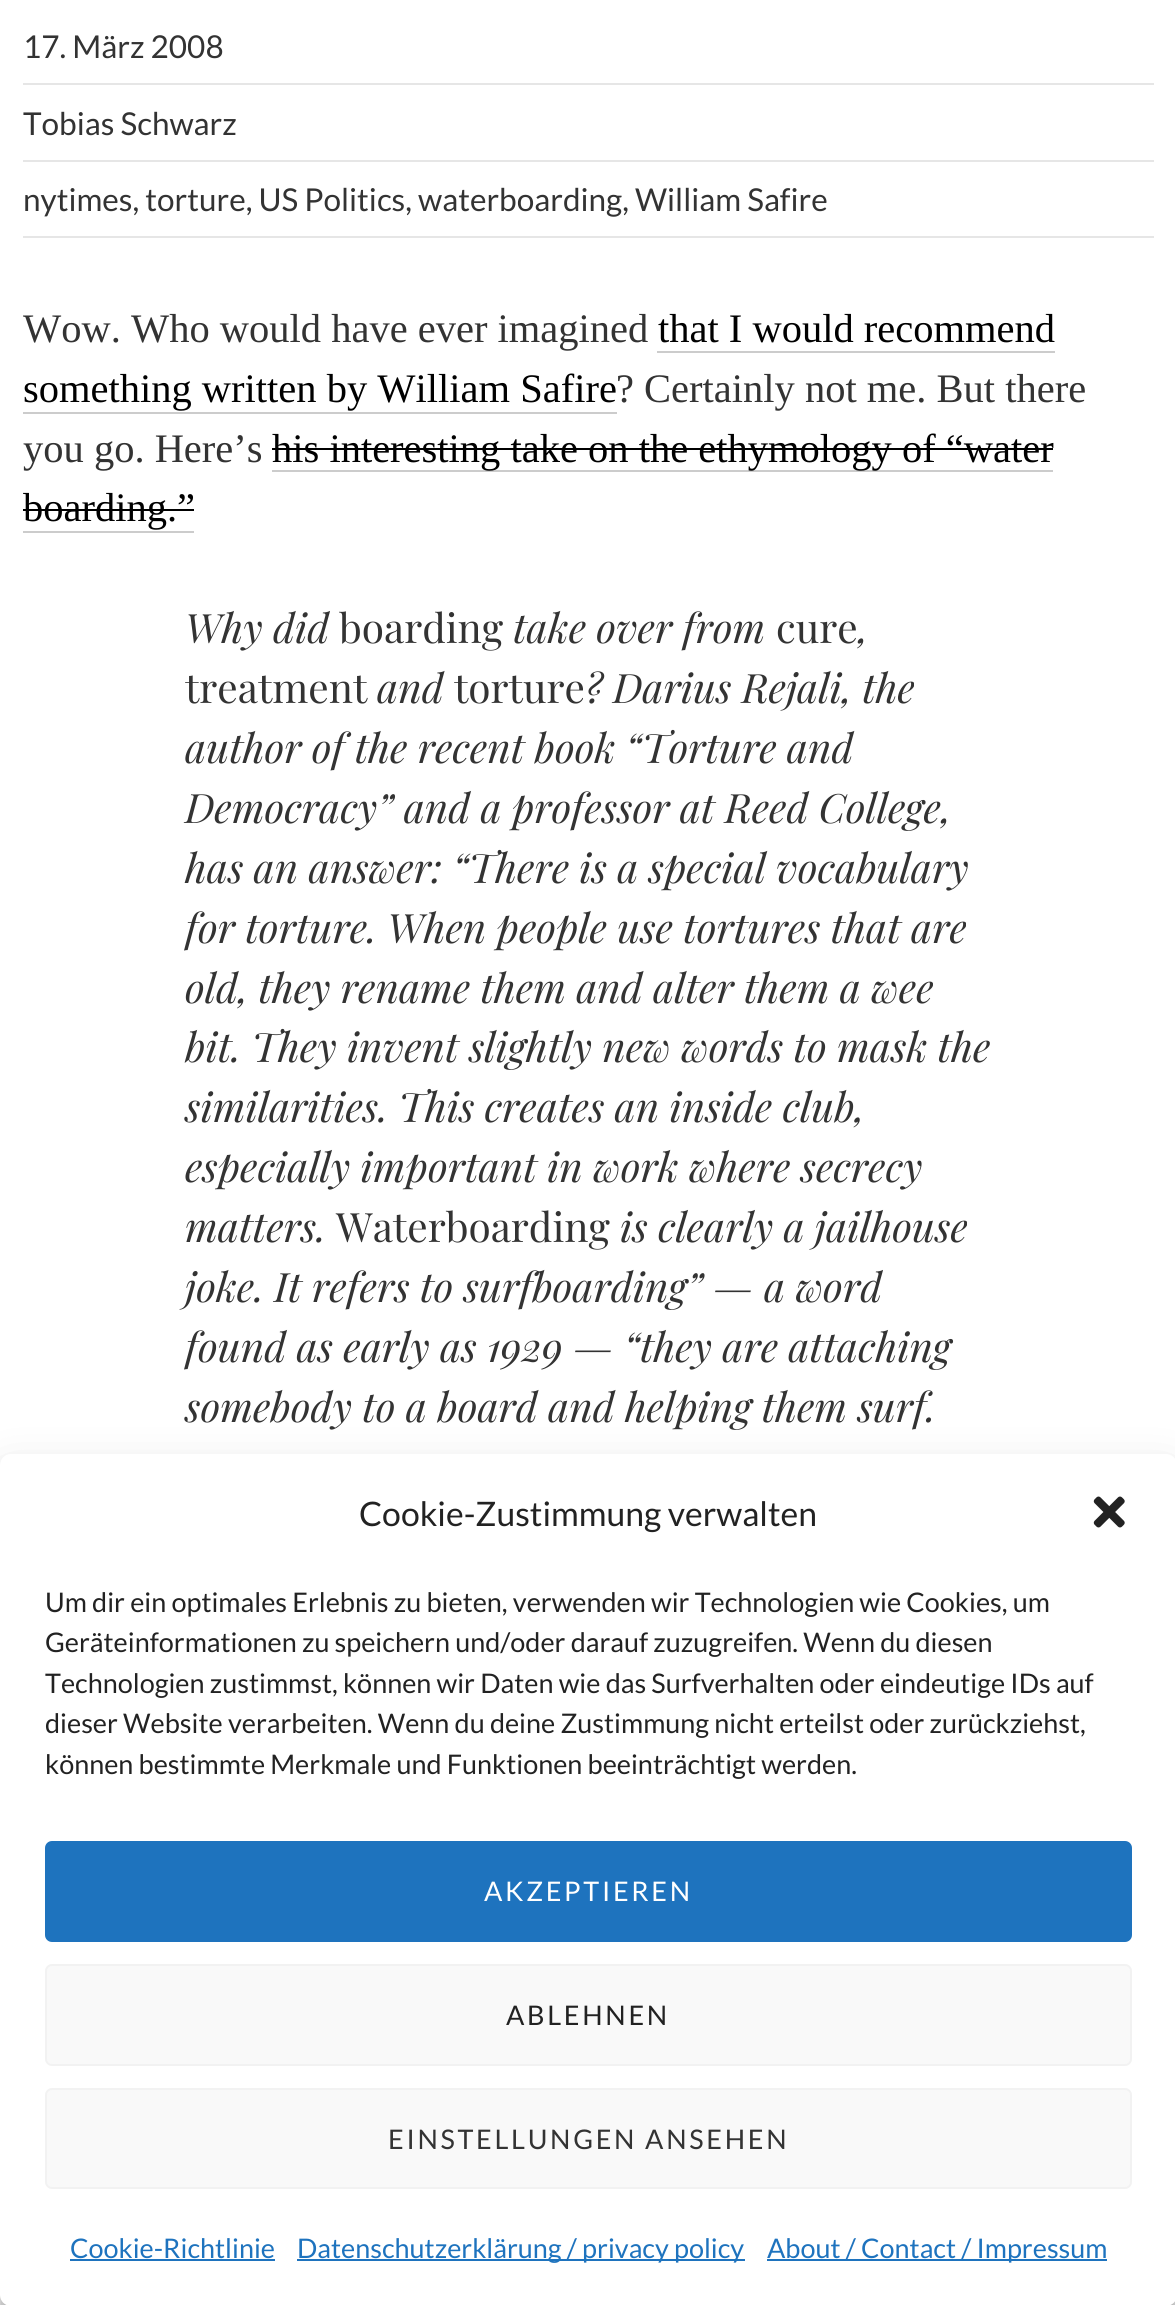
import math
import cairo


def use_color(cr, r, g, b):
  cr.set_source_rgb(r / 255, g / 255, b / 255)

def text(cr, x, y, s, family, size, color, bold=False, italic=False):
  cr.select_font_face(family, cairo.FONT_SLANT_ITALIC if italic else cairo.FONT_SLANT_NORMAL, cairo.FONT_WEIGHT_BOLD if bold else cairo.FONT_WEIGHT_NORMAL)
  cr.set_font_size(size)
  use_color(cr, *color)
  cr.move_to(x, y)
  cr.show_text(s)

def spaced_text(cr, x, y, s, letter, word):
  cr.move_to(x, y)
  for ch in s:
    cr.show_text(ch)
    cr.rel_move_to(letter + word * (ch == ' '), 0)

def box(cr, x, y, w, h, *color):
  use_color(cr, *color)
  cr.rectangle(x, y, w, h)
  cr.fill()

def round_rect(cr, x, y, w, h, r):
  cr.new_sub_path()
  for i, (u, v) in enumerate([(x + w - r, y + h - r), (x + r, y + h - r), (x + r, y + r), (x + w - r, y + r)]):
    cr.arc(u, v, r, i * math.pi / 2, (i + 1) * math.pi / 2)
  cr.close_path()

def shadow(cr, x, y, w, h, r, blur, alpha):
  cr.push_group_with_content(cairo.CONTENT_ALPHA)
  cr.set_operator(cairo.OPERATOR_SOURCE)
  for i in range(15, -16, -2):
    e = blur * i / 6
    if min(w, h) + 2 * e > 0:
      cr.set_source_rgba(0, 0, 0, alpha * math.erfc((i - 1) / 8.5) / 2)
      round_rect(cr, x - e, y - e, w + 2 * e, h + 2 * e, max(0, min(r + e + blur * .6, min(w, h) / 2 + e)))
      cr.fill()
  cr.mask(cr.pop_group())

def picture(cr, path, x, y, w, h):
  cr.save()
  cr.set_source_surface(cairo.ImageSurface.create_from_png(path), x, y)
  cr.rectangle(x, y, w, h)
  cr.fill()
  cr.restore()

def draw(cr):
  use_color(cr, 255, 255, 255)
  cr.paint()
  box(cr, 23, 83, 1131, 2, 230, 230, 230)
  box(cr, 23, 160, 1131, 2, 230, 230, 230)
  box(cr, 23, 236, 1131, 2, 230, 230, 230)
  box(cr, 657, 351, 398, 2, 204, 204, 204)
  box(cr, 23, 412, 594, 2, 204, 204, 204)
  box(cr, 272, 470, 781, 2, 204, 204, 204)
  box(cr, 272, 448, 781, 2, 0, 0, 0)
  box(cr, 23, 531, 171, 2, 204, 204, 204)
  box(cr, 23, 509, 171, 2, 0, 0, 0)
  use_color(cr, 0, 0, 0)
  shadow(cr, 0, 1467, 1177, 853, 11, 7, 0.23)
  shadow(cr, 0, 1476, 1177, 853, 11, 22.5, 0.19)
  use_color(cr, 255, 255, 255)
  round_rect(cr, 0, 1454, 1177, 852, 11)
  cr.fill()
  picture(cr, "img_01.png", 1093, 1496, 32, 32)
  use_color(cr, 30, 115, 190)
  round_rect(cr, 46, 1842, 1085, 99, 6)
  cr.fill_preserve()
  cr.stroke()
  use_color(cr, 249, 249, 249)
  round_rect(cr, 46, 1965, 1085, 100, 6)
  cr.fill_preserve()
  use_color(cr, 242, 242, 242)
  cr.stroke()
  use_color(cr, 249, 249, 249)
  round_rect(cr, 46, 2089, 1085, 99, 6)
  cr.fill_preserve()
  use_color(cr, 242, 242, 242)
  cr.stroke()
  box(cr, 70, 2259, 205, 2, 30, 115, 190)
  box(cr, 297, 2259, 448, 2, 30, 115, 190)
  box(cr, 767, 2259, 340, 2, 30, 115, 190)
  text(cr, 23, 58, "17. März 2008", "Lato", 31.5, (51, 51, 51))
  text(cr, 23, 135, "Tobias Schwarz", "Lato", 31.5, (51, 51, 51))
  text(cr, 23, 211, "nytimes, torture, US Politics, waterboarding, William Safire", "Lato", 31.5, (51, 51, 51))
  text(cr, 23, 342, "Wow. Who would have ever imagined", "Liberation Serif", 40.5, (51, 51, 51))
  text(cr, 658, 342, "that I would recommend", "Liberation Serif", 40.5, (0, 0, 0))
  text(cr, 23, 402, "something written by William Safire", "Liberation Serif", 40.5, (0, 0, 0))
  text(cr, 616, 402, "? Certainly not me. But there", "Liberation Serif", 40.5, (51, 51, 51))
  text(cr, 23, 462, "you go. Here’s", "Liberation Serif", 40.5, (51, 51, 51))
  text(cr, 272, 462, "his interesting take on the ethymology of “water", "Liberation Serif", 40.5, (0, 0, 0))
  text(cr, 23, 521, "boarding.”", "Liberation Serif", 40.5, (0, 0, 0))
  text(cr, 185, 643, "Why did", "Playfair Display", 40.5, (51, 51, 51), italic=True)
  text(cr, 339, 643, "boarding", "Playfair Display", 40.5, (51, 51, 51))
  text(cr, 513, 643, "take over from", "Playfair Display", 40.5, (51, 51, 51), italic=True)
  text(cr, 776, 643, "cure", "Playfair Display", 40.5, (51, 51, 51))
  text(cr, 858, 643, ",", "Playfair Display", 40.5, (51, 51, 51), italic=True)
  text(cr, 185, 703, "treatment", "Playfair Display", 40.5, (51, 51, 51))
  text(cr, 377, 703, "and", "Playfair Display", 40.5, (51, 51, 51), italic=True)
  text(cr, 454, 703, "torture", "Playfair Display", 40.5, (51, 51, 51))
  text(cr, 585, 703, "? Darius Rejali, the", "Playfair Display", 40.5, (51, 51, 51), italic=True)
  text(cr, 185, 763, "author of the recent book “Torture and", "Playfair Display", 40.5, (51, 51, 51), italic=True)
  text(cr, 185, 823, "Democracy” and a professor at Reed College,", "Playfair Display", 40.5, (51, 51, 51), italic=True)
  text(cr, 185, 883, "has an answer: “There is a special vocabulary", "Playfair Display", 40.5, (51, 51, 51), italic=True)
  text(cr, 185, 943, "for torture. When people use tortures that are", "Playfair Display", 40.5, (51, 51, 51), italic=True)
  text(cr, 185, 1003, "old, they rename them and alter them a wee", "Playfair Display", 40.5, (51, 51, 51), italic=True)
  text(cr, 185, 1062, "bit. They invent slightly new words to mask the", "Playfair Display", 40.5, (51, 51, 51), italic=True)
  text(cr, 185, 1122, "similarities. This creates an inside club,", "Playfair Display", 40.5, (51, 51, 51), italic=True)
  text(cr, 185, 1182, "especially important in work where secrecy", "Playfair Display", 40.5, (51, 51, 51), italic=True)
  text(cr, 185, 1242, "matters.", "Playfair Display", 40.5, (51, 51, 51), italic=True)
  text(cr, 336, 1242, "Waterboarding", "Playfair Display", 40.5, (51, 51, 51))
  text(cr, 620, 1242, "is clearly a jailhouse", "Playfair Display", 40.5, (51, 51, 51), italic=True)
  text(cr, 185, 1302, "joke. It refers to surfboarding” — a word", "Playfair Display", 40.5, (51, 51, 51), italic=True)
  text(cr, 185, 1362, "found as early as 1929 — “they are attaching", "Playfair Display", 40.5, (51, 51, 51), italic=True)
  text(cr, 185, 1422, "somebody to a board and helping them surf.", "Playfair Display", 40.5, (51, 51, 51), italic=True)
  text(cr, 359, 1526, "Cookie-Zustimmung verwalten", "Lato", 33.75, (34, 34, 34))
  text(cr, 45, 1612, "Um dir ein optimales Erlebnis zu bieten, verwenden wir Technologien wie Cookies, um", "Lato", 27, (34, 34, 34))
  text(cr, 45, 1652, "Geräteinformationen zu speichern und/oder darauf zuzugreifen. Wenn du diesen", "Lato", 27, (34, 34, 34))
  text(cr, 45, 1693, "Technologien zustimmst, können wir Daten wie das Surfverhalten oder eindeutige IDs auf", "Lato", 27, (34, 34, 34))
  text(cr, 45, 1733, "dieser Website verarbeiten. Wenn du deine Zustimmung nicht erteilst oder zurückziehst,", "Lato", 27, (34, 34, 34))
  text(cr, 45, 1774, "können bestimmte Merkmale und Funktionen beeinträchtigt werden.", "Lato", 27, (34, 34, 34))
  use_color(cr, 255, 255, 255)
  spaced_text(cr, 484, 1901, "AKZEPTIEREN", 2.7, 0)
  use_color(cr, 34, 34, 34)
  spaced_text(cr, 506, 2025, "ABLEHNEN", 2.7, 0)
  use_color(cr, 51, 51, 51)
  spaced_text(cr, 388, 2149, "EINSTELLUNGEN ANSEHEN", 2.7, 0)
  text(cr, 70, 2258, "Cookie-Richtlinie", "Lato", 27, (30, 115, 190))
  text(cr, 297, 2258, "Datenschutzerklärung / privacy policy", "Lato", 27, (30, 115, 190))
  text(cr, 767, 2258, "About / Contact / Impressum", "Lato", 27, (30, 115, 190))


surface = cairo.ImageSurface(cairo.FORMAT_RGB24, 1175, 2305)
cr = cairo.Context(surface)
options = cairo.FontOptions()
options.set_hint_metrics(cairo.HINT_METRICS_OFF)
options.set_hint_style(cairo.HINT_STYLE_NONE)
cr.set_font_options(options)
cr.set_miter_limit(4)
draw(cr)
surface.write_to_png("out.png")
